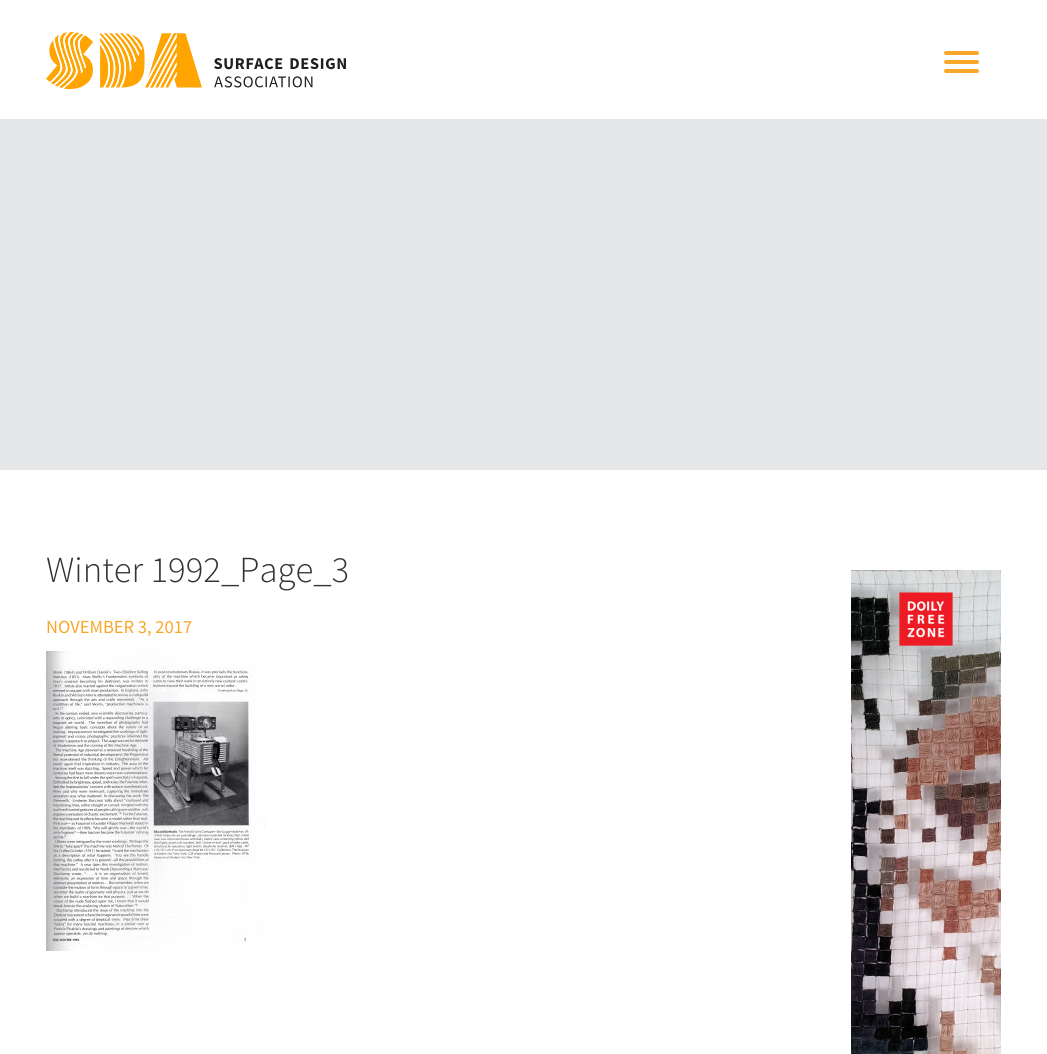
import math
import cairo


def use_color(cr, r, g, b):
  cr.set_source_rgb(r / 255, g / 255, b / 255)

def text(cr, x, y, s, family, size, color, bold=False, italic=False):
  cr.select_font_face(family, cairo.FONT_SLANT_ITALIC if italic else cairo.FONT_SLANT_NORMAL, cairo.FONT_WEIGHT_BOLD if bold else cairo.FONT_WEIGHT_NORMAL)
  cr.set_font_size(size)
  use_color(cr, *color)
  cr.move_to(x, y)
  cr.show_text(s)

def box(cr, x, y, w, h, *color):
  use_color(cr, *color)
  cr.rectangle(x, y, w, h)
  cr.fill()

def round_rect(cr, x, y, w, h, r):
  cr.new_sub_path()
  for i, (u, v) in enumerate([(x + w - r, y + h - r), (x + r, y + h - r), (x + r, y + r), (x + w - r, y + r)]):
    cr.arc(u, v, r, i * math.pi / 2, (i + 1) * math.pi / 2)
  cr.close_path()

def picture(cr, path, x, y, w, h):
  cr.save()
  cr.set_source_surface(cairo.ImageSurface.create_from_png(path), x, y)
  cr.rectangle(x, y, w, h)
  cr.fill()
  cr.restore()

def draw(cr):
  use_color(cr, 255, 255, 255)
  cr.paint()
  picture(cr, "img_01.png", 46, 32, 300, 57)
  use_color(cr, 250, 166, 40)
  round_rect(cr, 944, 51, 35, 4, 2)
  cr.fill()
  round_rect(cr, 944, 60, 35, 4, 2)
  cr.fill()
  round_rect(cr, 944, 69, 35, 4, 2)
  cr.fill()
  box(cr, 0, 119, 1047, 351, 230, 231, 232)
  picture(cr, "img_02.png", 46, 651, 220, 300)
  picture(cr, "img_03.png", 851, 570, 150, 484)
  text(cr, 46, 582, "Winter 1992_Page_3", "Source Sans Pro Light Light", 36.75, (51, 51, 51))
  text(cr, 46, 633, "NOVEMBER 3, 2017", "Source Sans Pro", 18.5, (250, 166, 40))


surface = cairo.ImageSurface(cairo.FORMAT_RGB24, 1047, 1054)
cr = cairo.Context(surface)
options = cairo.FontOptions()
options.set_hint_metrics(cairo.HINT_METRICS_OFF)
options.set_hint_style(cairo.HINT_STYLE_NONE)
cr.set_font_options(options)
cr.set_miter_limit(4)
draw(cr)
surface.write_to_png("out.png")
